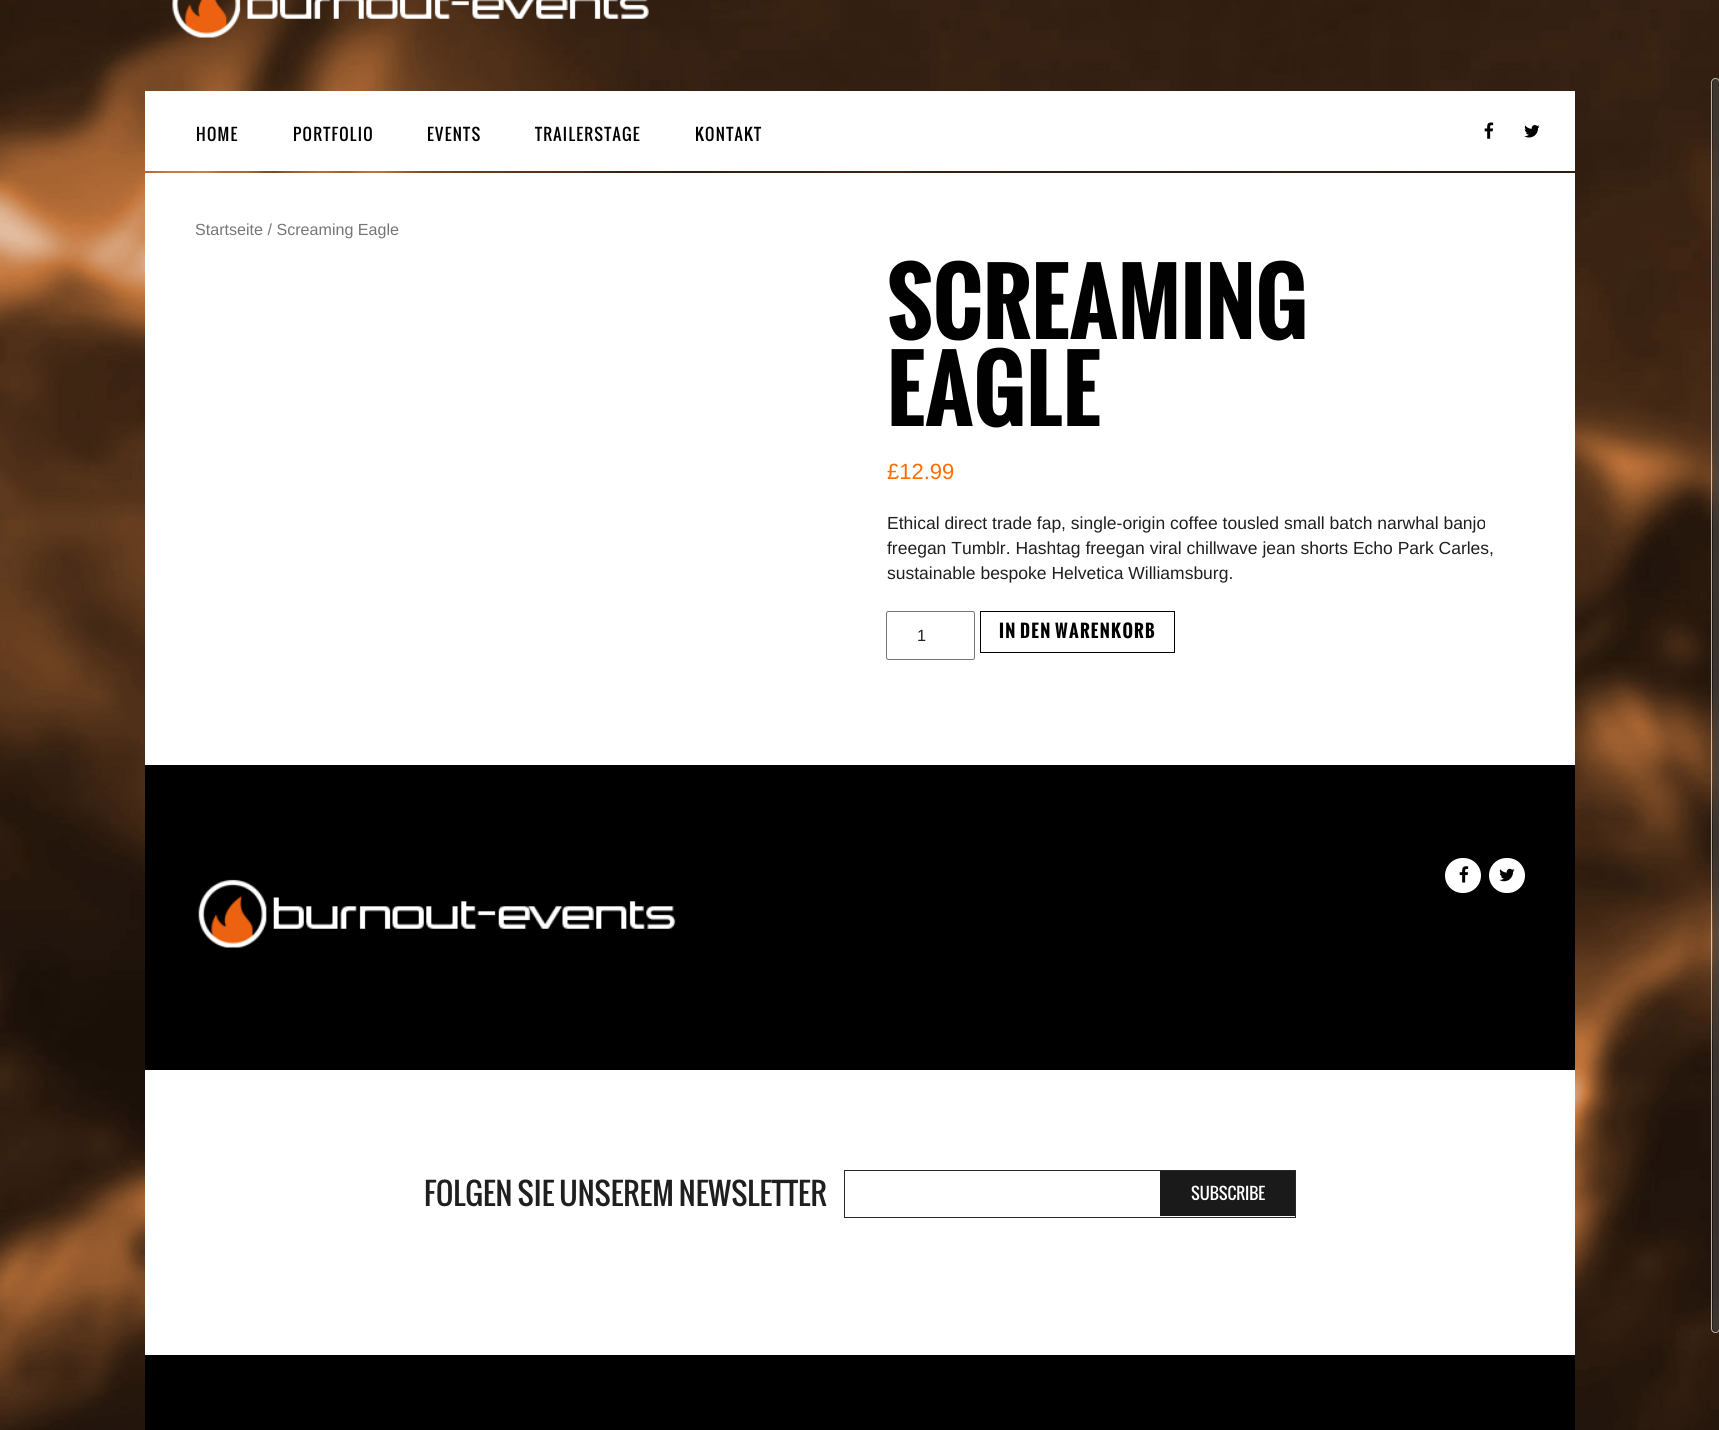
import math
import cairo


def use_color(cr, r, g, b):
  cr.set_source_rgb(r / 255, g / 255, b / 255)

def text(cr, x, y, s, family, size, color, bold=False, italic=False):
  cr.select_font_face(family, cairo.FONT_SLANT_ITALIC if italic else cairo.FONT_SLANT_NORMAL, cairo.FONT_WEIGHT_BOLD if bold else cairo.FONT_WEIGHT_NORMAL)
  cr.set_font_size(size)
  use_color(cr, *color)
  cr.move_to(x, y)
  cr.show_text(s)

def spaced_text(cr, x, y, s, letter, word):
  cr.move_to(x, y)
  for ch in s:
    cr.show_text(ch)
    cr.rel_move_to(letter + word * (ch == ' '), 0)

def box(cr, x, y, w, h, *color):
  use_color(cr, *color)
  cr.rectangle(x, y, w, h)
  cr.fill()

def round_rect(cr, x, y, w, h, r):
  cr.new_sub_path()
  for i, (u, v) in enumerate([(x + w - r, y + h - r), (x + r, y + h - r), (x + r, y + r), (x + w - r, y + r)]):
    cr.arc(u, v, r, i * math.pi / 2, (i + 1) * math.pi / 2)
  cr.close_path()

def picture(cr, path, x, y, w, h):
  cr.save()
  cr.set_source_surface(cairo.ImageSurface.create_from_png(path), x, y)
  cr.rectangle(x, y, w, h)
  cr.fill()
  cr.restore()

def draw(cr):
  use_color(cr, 255, 255, 255)
  cr.paint()
  picture(cr, "img_01.png", 0, 0, 1719, 1430)
  picture(cr, "img_02.png", 172, 0, 477, 38)
  box(cr, 145, 91, 1430, 80, 255, 255, 255)
  picture(cr, "img_03.png", 1484, 122, 10, 17)
  picture(cr, "img_04.png", 1524, 125, 16, 13)
  box(cr, 145, 173, 1430, 592, 255, 255, 255)
  round_rect(cr, 886.5, 611.5, 88, 48, 2)
  use_color(cr, 118, 118, 118)
  cr.set_line_width(1)
  cr.stroke()
  cr.rectangle(980.5, 611.5, 194, 41)
  use_color(cr, 0, 0, 0)
  cr.stroke()
  box(cr, 145, 765, 1430, 665, 0, 0, 0)
  use_color(cr, 255, 255, 255)
  round_rect(cr, 1445, 858, 36, 35, 17.5)
  cr.fill()
  picture(cr, "img_05.png", 1459, 866, 10, 17)
  round_rect(cr, 1489, 858, 36, 35, 17.5)
  cr.fill()
  picture(cr, "img_06.png", 1499, 868, 16, 14)
  picture(cr, "img_07.png", 198, 879, 478, 69)
  box(cr, 145, 1070, 1430, 285, 255, 255, 255)
  cr.rectangle(844.5, 1170.5, 451, 47)
  use_color(cr, 39, 39, 39)
  cr.stroke()
  box(cr, 1160, 1171, 135, 45, 26, 26, 26)
  cr.set_source_rgba(0.259, 0.259, 0.259, 0.66)
  round_rect(cr, 1713, 79, 6, 1252, 3)
  cr.fill()
  round_rect(cr, 1711.5, 78.5, 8, 1254, 4)
  cr.set_source_rgba(1, 1, 1, 0.66)
  cr.stroke()
  cr.select_font_face("Oswald")
  cr.set_font_size(16.25)
  use_color(cr, 1, 1, 1)
  spaced_text(cr, 196, 141, "HOME", 1.25, 0)
  spaced_text(cr, 293, 141, "PORTFOLIO", 1.25, 0)
  spaced_text(cr, 427, 141, "EVENTS", 1.25, 0)
  spaced_text(cr, 535, 141, "TRAILERSTAGE", 1.25, 0)
  spaced_text(cr, 695, 141, "KONTAKT", 1.25, 0)
  text(cr, 195, 235, "Startseite / Screaming Eagle", "Liberation Sans", 16.1, (118, 118, 118))
  text(cr, 887, 339, "SCREAMING", "Oswald", 87.5, (1, 1, 1), bold=True)
  text(cr, 887, 426, "EAGLE", "Oswald", 87.5, (1, 1, 1), bold=True)
  text(cr, 887, 479, "£12.99", "Liberation Sans", 22, (255, 109, 0))
  text(cr, 887, 529, "Ethical direct trade fap, single-origin coffee tousled small batch narwhal banjo", "Liberation Sans", 17.5, (31, 31, 31))
  text(cr, 887, 554, "freegan Tumblr. Hashtag freegan viral chillwave jean shorts Echo Park Carles,", "Liberation Sans", 17.5, (31, 31, 31))
  text(cr, 887, 579, "sustainable bespoke Helvetica Williamsburg.", "Liberation Sans", 17.5, (31, 31, 31))
  text(cr, 917, 641, "1", "Liberation Sans", 16.25, (31, 31, 31))
  cr.select_font_face("Oswald", cairo.FONT_SLANT_NORMAL, cairo.FONT_WEIGHT_BOLD)
  cr.set_font_size(17.5)
  use_color(cr, 1, 1, 1)
  spaced_text(cr, 999, 638, "IN DEN WARENKORB", 1.25, 0)
  text(cr, 424, 1206, "FOLGEN SIE UNSEREM NEWSLETTER", "Oswald", 30, (31, 31, 31))
  text(cr, 1191, 1200, "SUBSCRIBE", "Oswald", 16.25, (255, 255, 255))


surface = cairo.ImageSurface(cairo.FORMAT_RGB24, 1719, 1430)
cr = cairo.Context(surface)
options = cairo.FontOptions()
options.set_hint_metrics(cairo.HINT_METRICS_OFF)
options.set_hint_style(cairo.HINT_STYLE_NONE)
cr.set_font_options(options)
cr.set_miter_limit(4)
draw(cr)
surface.write_to_png("out.png")
